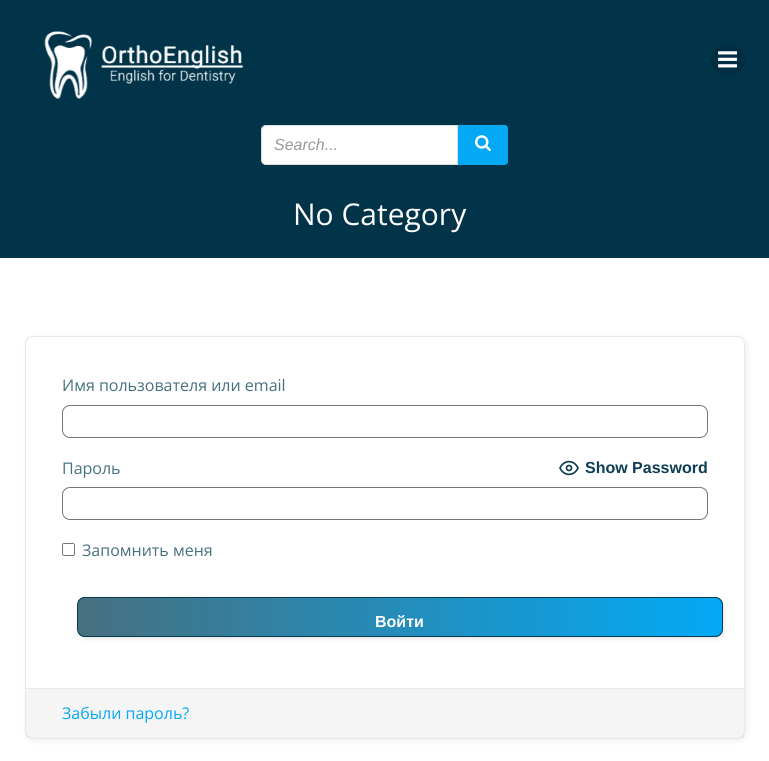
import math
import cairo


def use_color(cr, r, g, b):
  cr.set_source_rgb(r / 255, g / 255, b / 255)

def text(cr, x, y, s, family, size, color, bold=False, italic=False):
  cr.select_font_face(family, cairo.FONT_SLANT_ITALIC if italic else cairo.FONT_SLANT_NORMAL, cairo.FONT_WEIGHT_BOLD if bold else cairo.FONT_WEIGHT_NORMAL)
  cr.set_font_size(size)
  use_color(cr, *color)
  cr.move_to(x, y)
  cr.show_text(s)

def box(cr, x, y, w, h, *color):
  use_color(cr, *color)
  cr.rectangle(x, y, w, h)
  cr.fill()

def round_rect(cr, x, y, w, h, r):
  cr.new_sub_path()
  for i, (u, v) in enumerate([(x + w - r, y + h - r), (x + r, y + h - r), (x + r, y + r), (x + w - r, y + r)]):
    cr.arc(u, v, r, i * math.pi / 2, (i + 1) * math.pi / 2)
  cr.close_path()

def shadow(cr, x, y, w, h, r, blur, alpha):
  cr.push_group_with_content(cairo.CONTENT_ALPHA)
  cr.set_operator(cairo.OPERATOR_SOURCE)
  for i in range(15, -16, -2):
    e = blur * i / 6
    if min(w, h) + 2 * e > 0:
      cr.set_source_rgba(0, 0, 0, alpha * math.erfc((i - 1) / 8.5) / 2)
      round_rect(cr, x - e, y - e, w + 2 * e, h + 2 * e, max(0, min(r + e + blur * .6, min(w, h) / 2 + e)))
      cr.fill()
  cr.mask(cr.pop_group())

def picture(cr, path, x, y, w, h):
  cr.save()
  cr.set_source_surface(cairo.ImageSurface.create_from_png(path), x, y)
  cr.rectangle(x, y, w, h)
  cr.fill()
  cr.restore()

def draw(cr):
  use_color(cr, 255, 255, 255)
  cr.paint()
  box(cr, 0, 0, 769, 258, 1, 51, 73)
  picture(cr, "img_01.png", 44, 31, 200, 68)
  use_color(cr, 1, 46, 66)
  cr.arc(728, 60, 17, 0, 2 * math.pi)
  cr.fill()
  picture(cr, "img_02.png", 718, 51, 19, 17)
  use_color(cr, 255, 255, 255)
  cr.new_path()
  cr.move_to(266, 125.5)
  cr.line_to(457.5, 125.5)
  cr.line_to(457.5, 164.5)
  cr.line_to(266, 164.5)
  cr.curve_to(263.5, 164.5, 261.5, 162.5, 261.5, 160)
  cr.line_to(261.5, 130)
  cr.curve_to(261.5, 127.5, 263.5, 125.5, 266, 125.5)
  cr.close_path()
  cr.fill_preserve()
  use_color(cr, 222, 222, 222)
  cr.set_line_width(1)
  cr.stroke()
  use_color(cr, 3, 169, 244)
  cr.new_path()
  cr.move_to(458, 125)
  cr.line_to(505, 125)
  cr.curve_to(506.5, 125, 508, 126.5, 508, 128)
  cr.line_to(508, 162)
  cr.curve_to(508, 163.5, 506.5, 165, 505, 165)
  cr.line_to(458, 165)
  cr.close_path()
  cr.fill()
  picture(cr, "img_03.png", 475, 135, 16, 17)
  use_color(cr, 0, 0, 0)
  shadow(cr, 27, 338, 720, 403, 8, 3.5, 0.07)
  use_color(cr, 255, 255, 255)
  round_rect(cr, 25.5, 336.5, 719, 402, 7.5)
  cr.fill_preserve()
  use_color(cr, 232, 232, 232)
  cr.stroke()
  round_rect(cr, 62.5, 405.5, 645, 32, 7.5)
  use_color(cr, 119, 119, 119)
  cr.stroke()
  cr.new_path()
  cr.move_to(560, 468)
  cr.curve_to(564, 459.5, 574, 459.5, 578, 468)
  cr.curve_to(574, 476.5, 564, 476.5, 560, 468)
  cr.close_path()
  use_color(cr, 12, 61, 84)
  cr.set_line_width(1.7)
  cr.set_line_cap(cairo.LINE_CAP_ROUND)
  cr.set_line_join(cairo.LINE_JOIN_ROUND)
  cr.stroke()
  cr.arc(569, 468, 2.5, 0, 2 * math.pi)
  cr.set_line_cap(cairo.LINE_CAP_BUTT)
  cr.set_line_join(cairo.LINE_JOIN_MITER)
  cr.stroke()
  round_rect(cr, 62.5, 487.5, 645, 32, 7.5)
  use_color(cr, 119, 119, 119)
  cr.set_line_width(1)
  cr.stroke()
  round_rect(cr, 62.5, 543.5, 12, 12, 1.5)
  use_color(cr, 118, 118, 118)
  cr.stroke()
  use_color(cr, 0, 0, 0)
  shadow(cr, 78, 599, 646, 40, 8, 2, 0.1)
  cr.save()
  round_rect(cr, 77, 597, 646, 40, 8)
  cr.clip()
  gradient = cairo.LinearGradient(78, 617, 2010, 617)
  gradient.add_color_stop_rgba(0, 0.275, 0.439, 0.498, 1)
  gradient.add_color_stop_rgba(0.33, 0.012, 0.663, 0.957, 1)
  gradient.add_color_stop_rgba(0.67, 0.275, 0.439, 0.498, 1)
  gradient.add_color_stop_rgba(1, 0.012, 0.663, 0.957, 1)
  cr.set_source(gradient)
  cr.new_path()
  cr.move_to(78, 597)
  cr.line_to(715, 597)
  cr.curve_to(719.5, 597, 723, 600.5, 723, 605)
  cr.line_to(723, 629)
  cr.curve_to(723, 633.5, 719.5, 637, 715, 637)
  cr.line_to(78, 637)
  cr.close_path()
  cr.fill()
  cr.restore()
  round_rect(cr, 77.5, 597.5, 645, 39, 7.5)
  use_color(cr, 12, 61, 84)
  cr.stroke()
  cr.set_source_rgba(0, 0, 0, 0.04)
  cr.rectangle(26, 689, 718, 49)
  cr.fill()
  box(cr, 26, 688, 718, 1, 232, 232, 232)
  text(cr, 274, 150, "Search...", "Liberation Sans", 16, (153, 153, 153), italic=True)
  text(cr, 293, 225, "No Category", "Open Sans", 30, (255, 255, 255))
  text(cr, 62, 391, "Имя пользователя или email", "Open Sans", 16, (70, 112, 127))
  text(cr, 62, 474, "Пароль", "Open Sans", 16, (70, 112, 127))
  text(cr, 585, 473, "Show Password", "Liberation Sans", 16, (12, 61, 84), bold=True)
  text(cr, 82, 556, "Запомнить меня", "Open Sans", 16, (70, 112, 127))
  text(cr, 375, 627, "Войти", "Liberation Sans", 16, (255, 255, 255), bold=True)
  text(cr, 62, 719, "Забыли пароль?", "Open Sans", 16, (3, 169, 244))


surface = cairo.ImageSurface(cairo.FORMAT_RGB24, 769, 761)
cr = cairo.Context(surface)
options = cairo.FontOptions()
options.set_hint_metrics(cairo.HINT_METRICS_OFF)
options.set_hint_style(cairo.HINT_STYLE_NONE)
cr.set_font_options(options)
cr.set_miter_limit(4)
draw(cr)
surface.write_to_png("out.png")
